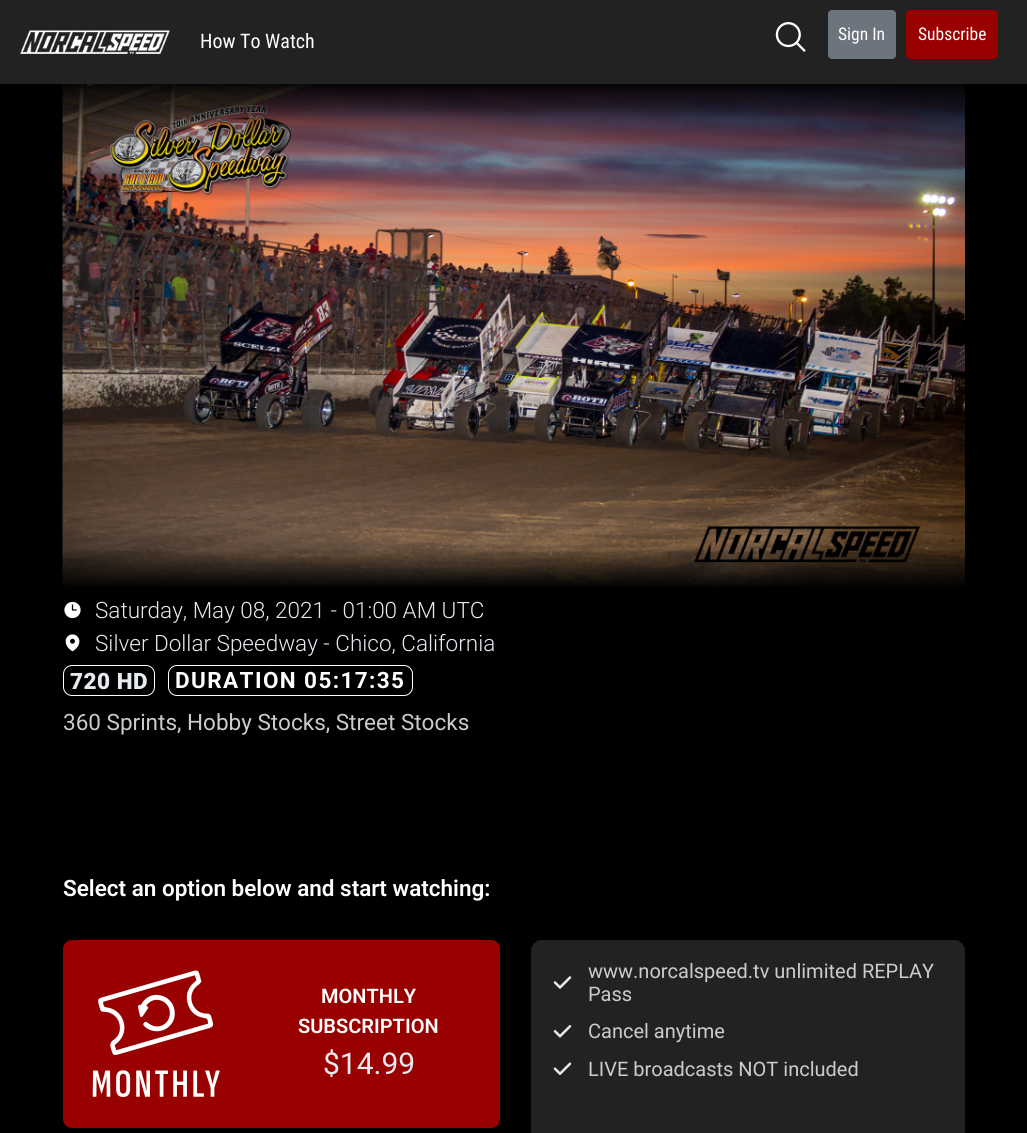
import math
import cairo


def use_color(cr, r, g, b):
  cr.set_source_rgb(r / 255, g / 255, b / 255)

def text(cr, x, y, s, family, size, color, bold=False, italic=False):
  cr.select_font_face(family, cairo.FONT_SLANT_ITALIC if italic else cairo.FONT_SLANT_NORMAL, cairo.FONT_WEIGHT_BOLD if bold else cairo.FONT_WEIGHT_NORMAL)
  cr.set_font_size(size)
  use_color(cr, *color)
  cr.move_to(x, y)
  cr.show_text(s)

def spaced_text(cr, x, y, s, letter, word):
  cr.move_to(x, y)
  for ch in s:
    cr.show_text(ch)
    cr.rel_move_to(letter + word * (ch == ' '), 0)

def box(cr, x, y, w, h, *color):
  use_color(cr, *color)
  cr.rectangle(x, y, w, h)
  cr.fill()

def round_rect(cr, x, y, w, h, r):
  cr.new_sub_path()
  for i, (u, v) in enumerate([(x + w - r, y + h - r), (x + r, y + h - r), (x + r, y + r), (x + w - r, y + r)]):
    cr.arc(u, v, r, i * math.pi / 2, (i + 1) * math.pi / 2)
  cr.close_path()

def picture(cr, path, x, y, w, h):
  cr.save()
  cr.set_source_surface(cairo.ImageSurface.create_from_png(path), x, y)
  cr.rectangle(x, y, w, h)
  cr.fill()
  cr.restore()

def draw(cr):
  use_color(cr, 0, 0, 0)
  cr.paint()
  box(cr, 0, 0, 1027, 84, 34, 34, 34)
  picture(cr, "img_01.png", 20, 30, 150, 24)
  picture(cr, "img_02.png", 775, 22, 31, 30)
  use_color(cr, 108, 117, 125)
  round_rect(cr, 828.5, 10.5, 67, 48, 3.5)
  cr.fill_preserve()
  cr.set_line_width(1)
  cr.stroke()
  use_color(cr, 153, 0, 0)
  round_rect(cr, 906.5, 10.5, 91, 48, 3.5)
  cr.fill_preserve()
  cr.stroke()
  picture(cr, "img_03.png", 62, 84, 903, 504)
  gradient = cairo.LinearGradient(514, 589, 514, 79)
  gradient.add_color_stop_rgba(0, 0, 0, 0, 1)
  gradient.add_color_stop_rgba(0.03, 0, 0, 0, 0.75)
  gradient.add_color_stop_rgba(0.06, 0, 0, 0, 0.5)
  gradient.add_color_stop_rgba(0.08, 0, 0, 0, 0.25)
  gradient.add_color_stop_rgba(0.15, 0, 0, 0, 0)
  gradient.add_color_stop_rgba(1, 0, 0, 0, 0)
  cr.set_source(gradient)
  cr.rectangle(62, 516, 903, 72)
  cr.fill()
  gradient = cairo.LinearGradient(514, 79, 514, 589)
  gradient.add_color_stop_rgba(0, 0, 0, 0, 1)
  gradient.add_color_stop_rgba(0.03, 0, 0, 0, 0.7)
  gradient.add_color_stop_rgba(0.06, 0, 0, 0, 0.5)
  gradient.add_color_stop_rgba(0.08, 0, 0, 0, 0.25)
  gradient.add_color_stop_rgba(0.15, 0, 0, 0, 0)
  gradient.add_color_stop_rgba(1, 0, 0, 0, 0)
  cr.set_source(gradient)
  cr.rectangle(62, 84, 903, 68)
  cr.fill()
  picture(cr, "img_04.png", 64, 601, 17, 18)
  picture(cr, "img_05.png", 65, 634, 15, 18)
  round_rect(cr, 63.5, 665.5, 91, 30, 8.5)
  use_color(cr, 255, 255, 255)
  cr.stroke()
  round_rect(cr, 168.5, 665.5, 244, 30, 8.5)
  cr.stroke()
  use_color(cr, 153, 0, 0)
  round_rect(cr, 63, 940, 437, 188, 9)
  cr.fill()
  picture(cr, "img_06.png", 92, 970, 128, 127)
  use_color(cr, 34, 34, 34)
  round_rect(cr, 531, 940, 434, 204, 11)
  cr.fill()
  picture(cr, "img_07.png", 553, 976, 19, 13)
  picture(cr, "img_08.png", 553, 1025, 19, 13)
  picture(cr, "img_09.png", 553, 1062, 19, 13)
  text(cr, 200, 48, "How To Watch", "Roboto Condensed", 20, (255, 255, 255))
  text(cr, 838, 40, "Sign In", "Roboto Condensed", 17.5, (255, 255, 255))
  text(cr, 918, 40, "Subscribe", "Roboto Condensed", 17.5, (255, 255, 255))
  text(cr, 95, 618, "Saturday, May 08, 2021 - 01:00 AM UTC", "Roboto Light", 22.5, (230, 233, 239))
  text(cr, 95, 651, "Silver Dollar Speedway - Chico, California", "Roboto Light", 22.5, (230, 233, 239))
  cr.select_font_face("Roboto Black")
  spaced_text(cr, 70, 689, "720 HD", 0.5, 0)
  cr.select_font_face("Roboto", cairo.FONT_SLANT_NORMAL, cairo.FONT_WEIGHT_BOLD)
  use_color(cr, 255, 255, 255)
  spaced_text(cr, 175, 688, "DURATION 05:17:35", 1.4, 0)
  text(cr, 63, 730, "360 Sprints, Hobby Stocks, Street Stocks", "Roboto", 22.5, (204, 204, 204))
  text(cr, 63, 896, "Select an option below and start watching:", "Roboto SemiBold", 22.5, (255, 255, 255))
  text(cr, 321, 1003, "MONTHLY", "Roboto SemiBold", 20, (255, 255, 255))
  text(cr, 298, 1033, "SUBSCRIPTION", "Roboto SemiBold", 20, (255, 255, 255))
  text(cr, 323, 1074, "$14.99", "Roboto", 30, (230, 233, 239))
  text(cr, 588, 978, "www.norcalspeed.tv unlimited REPLAY", "Roboto", 20, (204, 204, 204))
  text(cr, 588, 1001, "Pass", "Roboto", 20, (204, 204, 204))
  text(cr, 588, 1038, "Cancel anytime", "Roboto", 20, (204, 204, 204))
  text(cr, 588, 1076, "LIVE broadcasts NOT included", "Roboto", 20, (204, 204, 204))


surface = cairo.ImageSurface(cairo.FORMAT_RGB24, 1027, 1133)
cr = cairo.Context(surface)
options = cairo.FontOptions()
options.set_hint_metrics(cairo.HINT_METRICS_OFF)
options.set_hint_style(cairo.HINT_STYLE_NONE)
cr.set_font_options(options)
cr.set_miter_limit(4)
draw(cr)
surface.write_to_png("out.png")
